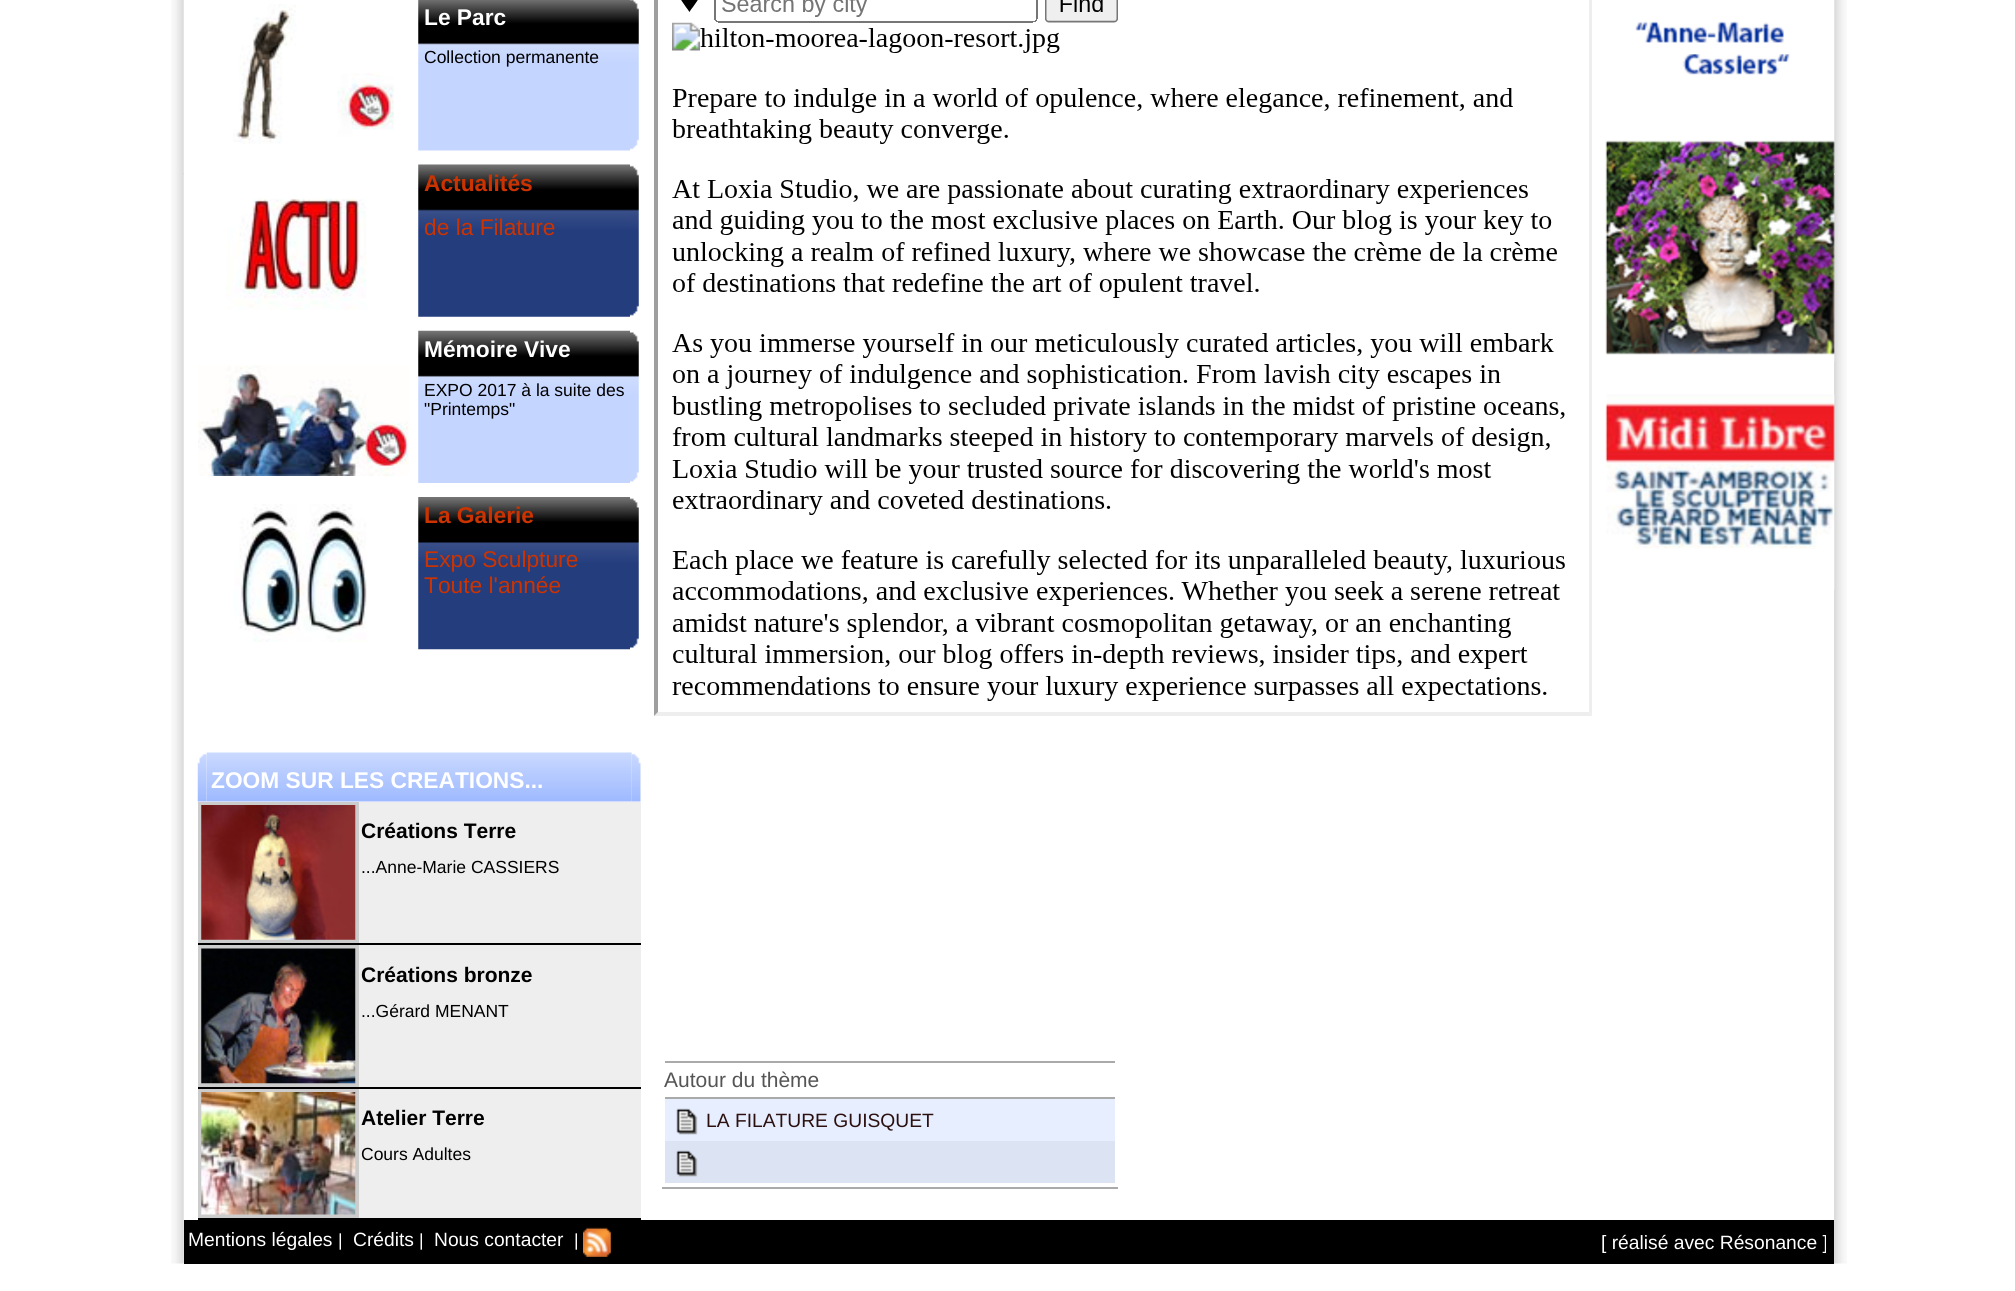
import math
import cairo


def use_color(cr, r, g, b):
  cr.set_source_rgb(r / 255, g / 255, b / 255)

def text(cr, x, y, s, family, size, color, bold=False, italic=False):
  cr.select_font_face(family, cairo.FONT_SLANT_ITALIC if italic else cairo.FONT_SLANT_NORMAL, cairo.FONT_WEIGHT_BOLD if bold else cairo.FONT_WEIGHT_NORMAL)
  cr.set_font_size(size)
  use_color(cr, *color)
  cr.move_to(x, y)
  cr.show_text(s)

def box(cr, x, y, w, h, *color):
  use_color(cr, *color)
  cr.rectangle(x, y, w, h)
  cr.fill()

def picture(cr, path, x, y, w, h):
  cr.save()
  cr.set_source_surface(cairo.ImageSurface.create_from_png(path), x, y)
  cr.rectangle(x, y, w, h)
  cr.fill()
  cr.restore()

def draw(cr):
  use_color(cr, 255, 255, 255)
  cr.paint()
  picture(cr, "img_01.png", 171, 0, 13, 1264)
  picture(cr, "img_02.png", 183, 173, 1, 2)
  picture(cr, "img_03.png", 233, 4, 161, 140)
  picture(cr, "img_04.png", 418, 0, 212, 151)
  picture(cr, "img_05.png", 630, 0, 9, 150)
  picture(cr, "img_06.png", 226, 198, 141, 112)
  picture(cr, "img_07.png", 418, 164, 212, 153)
  picture(cr, "img_08.png", 630, 165, 9, 151)
  picture(cr, "img_09.png", 198, 365, 211, 111)
  picture(cr, "img_10.png", 418, 330, 212, 153)
  picture(cr, "img_11.png", 630, 332, 9, 150)
  picture(cr, "img_12.png", 234, 504, 133, 138)
  picture(cr, "img_13.png", 418, 497, 212, 153)
  picture(cr, "img_14.png", 630, 498, 9, 150)
  picture(cr, "img_16.png", 206, 752, 426, 50)
  picture(cr, "img_15.png", 197, 753, 10, 49)
  picture(cr, "img_17.png", 631, 753, 10, 49)
  box(cr, 359, 802, 282, 416, 238, 238, 238)
  box(cr, 198, 943, 443, 2, 0, 0, 0)
  box(cr, 198, 802, 161, 141, 204, 204, 204)
  picture(cr, "img_18.png", 201, 805, 155, 135)
  box(cr, 198, 1087, 443, 2, 0, 0, 0)
  box(cr, 198, 945, 161, 142, 204, 204, 204)
  picture(cr, "img_19.png", 201, 948, 155, 136)
  box(cr, 198, 1218, 443, 2, 0, 0, 0)
  box(cr, 198, 1089, 161, 129, 204, 204, 204)
  picture(cr, "img_20.png", 201, 1092, 155, 123)
  picture(cr, "img_27.png", 1834, 0, 13, 1264)
  picture(cr, "img_21.png", 1605, 0, 230, 362)
  picture(cr, "img_22.png", 1605, 394, 230, 196)
  use_color(cr, 238, 238, 238)
  cr.new_path()
  cr.move_to(1592, -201)
  cr.line_to(1592, 716)
  cr.line_to(1589, 712)
  cr.line_to(1589, -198)
  cr.close_path()
  cr.fill()
  cr.new_path()
  cr.move_to(1592, 716)
  cr.line_to(654, 716)
  cr.line_to(658, 712)
  cr.line_to(1589, 712)
  cr.close_path()
  cr.fill()
  use_color(cr, 159, 159, 159)
  cr.new_path()
  cr.move_to(654, 716)
  cr.line_to(654, -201)
  cr.line_to(658, -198)
  cr.line_to(658, 712)
  cr.close_path()
  cr.fill()
  picture(cr, "img_23.png", 672, 0, 893, 701)
  box(cr, 662, 1187, 456, 2, 170, 170, 170)
  box(cr, 665, 1061, 450, 2, 170, 170, 170)
  box(cr, 665, 1097, 450, 2, 170, 170, 170)
  box(cr, 665, 1099, 450, 42, 231, 238, 255)
  picture(cr, "img_24.png", 676, 1108, 22, 27)
  box(cr, 665, 1141, 450, 42, 220, 227, 243)
  picture(cr, "img_25.png", 676, 1150, 22, 27)
  box(cr, 184, 1220, 1650, 44, 0, 0, 0)
  picture(cr, "img_26.png", 583, 1227, 28, 30)
  picture(cr, "img_28.png", 1834, 173, 1, 2)
  text(cr, 424, 25, "Le Parc", "Liberation Sans", 22.75, (255, 255, 255), bold=True)
  text(cr, 424, 63, "Collection permanente", "Liberation Sans", 17.5, (0, 0, 0))
  text(cr, 424, 191, "Actualités", "Liberation Sans", 22.75, (204, 51, 0), bold=True)
  text(cr, 424, 235, "de la Filature", "Liberation Sans", 22.75, (204, 51, 0))
  text(cr, 424, 357, "Mémoire Vive", "Liberation Sans", 22.75, (255, 255, 255), bold=True)
  text(cr, 424, 396, "EXPO 2017 à la suite des", "Liberation Sans", 17.5, (0, 0, 0))
  text(cr, 424, 415, "\"Printemps\"", "Liberation Sans", 17.5, (0, 0, 0))
  text(cr, 424, 523, "La Galerie", "Liberation Sans", 22.75, (204, 51, 0), bold=True)
  text(cr, 424, 567, "Expo Sculpture", "Liberation Sans", 22.75, (204, 51, 0))
  text(cr, 424, 593, "Toute l'année", "Liberation Sans", 22.75, (204, 51, 0))
  text(cr, 211, 788, "ZOOM SUR LES CREATIONS...", "Liberation Sans", 22.75, (255, 255, 255), bold=True)
  text(cr, 361, 838, "Créations Terre", "Liberation Sans", 21, (0, 0, 0), bold=True)
  text(cr, 361, 873, "...Anne-Marie CASSIERS", "Liberation Sans", 17.5, (0, 0, 0))
  text(cr, 361, 982, "Créations bronze", "Liberation Sans", 21, (0, 0, 0), bold=True)
  text(cr, 361, 1017, "...Gérard MENANT", "Liberation Sans", 17.5, (0, 0, 0))
  text(cr, 361, 1125, "Atelier Terre", "Liberation Sans", 21, (0, 0, 0), bold=True)
  text(cr, 361, 1160, "Cours Adultes", "Liberation Sans", 17.5, (0, 0, 0))
  text(cr, 664, 1087, "Autour du thème", "Liberation Sans", 21, (85, 85, 85))
  text(cr, 706, 1127, "LA FILATURE GUISQUET", "Liberation Sans", 19.25, (43, 16, 15))
  text(cr, 188, 1246, "Mentions légales", "Liberation Sans", 19.25, (255, 255, 255))
  text(cr, 338, 1246, "|", "Liberation Sans", 17.5, (255, 255, 255))
  text(cr, 353, 1246, "Crédits", "Liberation Sans", 19.25, (255, 255, 255))
  text(cr, 419, 1246, "|", "Liberation Sans", 17.5, (255, 255, 255))
  text(cr, 434, 1246, "Nous contacter", "Liberation Sans", 19.25, (255, 255, 255))
  text(cr, 574, 1246, "|", "Liberation Sans", 17.5, (255, 255, 255))
  text(cr, 1601, 1249, "[ réalisé avec Résonance ]", "Liberation Sans", 19.25, (255, 255, 255))


surface = cairo.ImageSurface(cairo.FORMAT_RGB24, 2015, 1291)
cr = cairo.Context(surface)
options = cairo.FontOptions()
options.set_hint_metrics(cairo.HINT_METRICS_OFF)
options.set_hint_style(cairo.HINT_STYLE_NONE)
cr.set_font_options(options)
cr.set_miter_limit(4)
draw(cr)
surface.write_to_png("out.png")
